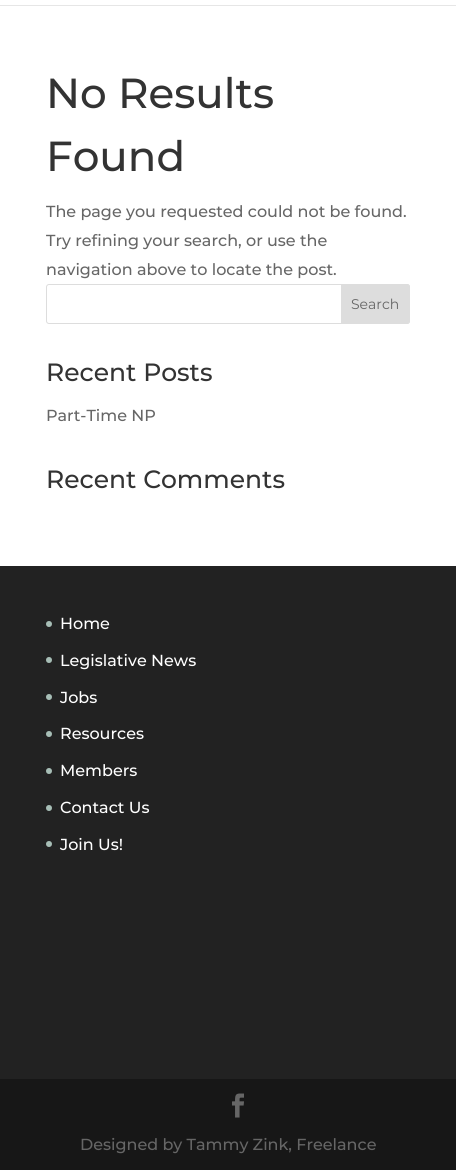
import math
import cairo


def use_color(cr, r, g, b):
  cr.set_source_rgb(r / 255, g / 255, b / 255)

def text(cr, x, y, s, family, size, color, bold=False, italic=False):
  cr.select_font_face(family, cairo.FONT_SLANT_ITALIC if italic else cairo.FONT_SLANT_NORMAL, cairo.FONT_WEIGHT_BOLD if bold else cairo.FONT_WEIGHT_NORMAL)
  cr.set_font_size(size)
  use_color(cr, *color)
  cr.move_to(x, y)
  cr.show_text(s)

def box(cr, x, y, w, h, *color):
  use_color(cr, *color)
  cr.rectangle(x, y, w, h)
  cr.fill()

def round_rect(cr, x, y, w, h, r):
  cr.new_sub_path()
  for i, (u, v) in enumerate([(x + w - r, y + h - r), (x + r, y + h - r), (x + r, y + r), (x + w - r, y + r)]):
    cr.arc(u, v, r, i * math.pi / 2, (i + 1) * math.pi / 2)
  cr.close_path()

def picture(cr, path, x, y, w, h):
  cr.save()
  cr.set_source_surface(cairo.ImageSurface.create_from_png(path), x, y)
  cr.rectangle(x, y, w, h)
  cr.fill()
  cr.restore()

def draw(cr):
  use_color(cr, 255, 255, 255)
  cr.paint()
  box(cr, 0, 5, 456, 1, 230, 230, 230)
  round_rect(cr, 46.5, 284.5, 363, 39, 2.5)
  use_color(cr, 221, 221, 221)
  cr.set_line_width(1)
  cr.stroke()
  cr.new_path()
  cr.move_to(341.5, 284.5)
  cr.line_to(407, 284.5)
  cr.curve_to(408.5, 284.5, 409.5, 285.5, 409.5, 287)
  cr.line_to(409.5, 321)
  cr.curve_to(409.5, 322.5, 408.5, 323.5, 407, 323.5)
  cr.line_to(341.5, 323.5)
  cr.close_path()
  cr.fill_preserve()
  cr.stroke()
  box(cr, 0, 566, 456, 513, 34, 34, 34)
  use_color(cr, 167, 190, 182)
  cr.arc(49, 624, 3, 0, 2 * math.pi)
  cr.fill()
  cr.arc(49, 660, 3, 0, 2 * math.pi)
  cr.fill()
  cr.arc(49, 697, 3, 0, 2 * math.pi)
  cr.fill()
  cr.arc(49, 734, 3, 0, 2 * math.pi)
  cr.fill()
  cr.arc(49, 771, 3, 0, 2 * math.pi)
  cr.fill()
  cr.arc(49, 808, 3, 0, 2 * math.pi)
  cr.fill()
  cr.arc(49, 844, 3, 0, 2 * math.pi)
  cr.fill()
  box(cr, 0, 1079, 456, 91, 23, 23, 23)
  picture(cr, "img_01.png", 232, 1093, 12, 25)
  text(cr, 46, 108, "No Results", "Montserrat Medium", 42, (51, 51, 51))
  text(cr, 46, 171, "Found", "Montserrat Medium", 42, (51, 51, 51))
  text(cr, 46, 217, "The page you requested could not be found.", "Montserrat Medium", 16, (102, 102, 102))
  text(cr, 46, 246, "Try refining your search, or use the", "Montserrat Medium", 16, (102, 102, 102))
  text(cr, 46, 275, "navigation above to locate the post.", "Montserrat Medium", 16, (102, 102, 102))
  text(cr, 351, 309, "Search", "Montserrat", 14, (102, 102, 102))
  text(cr, 46, 381, "Recent Posts", "Montserrat Medium", 25, (51, 51, 51))
  text(cr, 46, 421, "Part-Time NP", "Montserrat Medium", 16, (102, 102, 102))
  text(cr, 46, 488, "Recent Comments", "Montserrat Medium", 25, (51, 51, 51))
  text(cr, 60, 629, "Home", "Montserrat Medium", 16, (255, 255, 255))
  text(cr, 60, 666, "Legislative News", "Montserrat Medium", 16, (255, 255, 255))
  text(cr, 60, 703, "Jobs", "Montserrat Medium", 16, (255, 255, 255))
  text(cr, 60, 739, "Resources", "Montserrat Medium", 16, (255, 255, 255))
  text(cr, 60, 776, "Members", "Montserrat Medium", 16, (255, 255, 255))
  text(cr, 60, 813, "Contact Us", "Montserrat Medium", 16, (255, 255, 255))
  text(cr, 60, 850, "Join Us!", "Montserrat Medium", 16, (255, 255, 255))
  text(cr, 80, 1150, "Designed by Tammy Zink, Freelance", "Montserrat Medium", 16, (102, 102, 102))


surface = cairo.ImageSurface(cairo.FORMAT_RGB24, 456, 1170)
cr = cairo.Context(surface)
options = cairo.FontOptions()
options.set_hint_metrics(cairo.HINT_METRICS_OFF)
options.set_hint_style(cairo.HINT_STYLE_NONE)
cr.set_font_options(options)
cr.set_miter_limit(4)
draw(cr)
surface.write_to_png("out.png")
